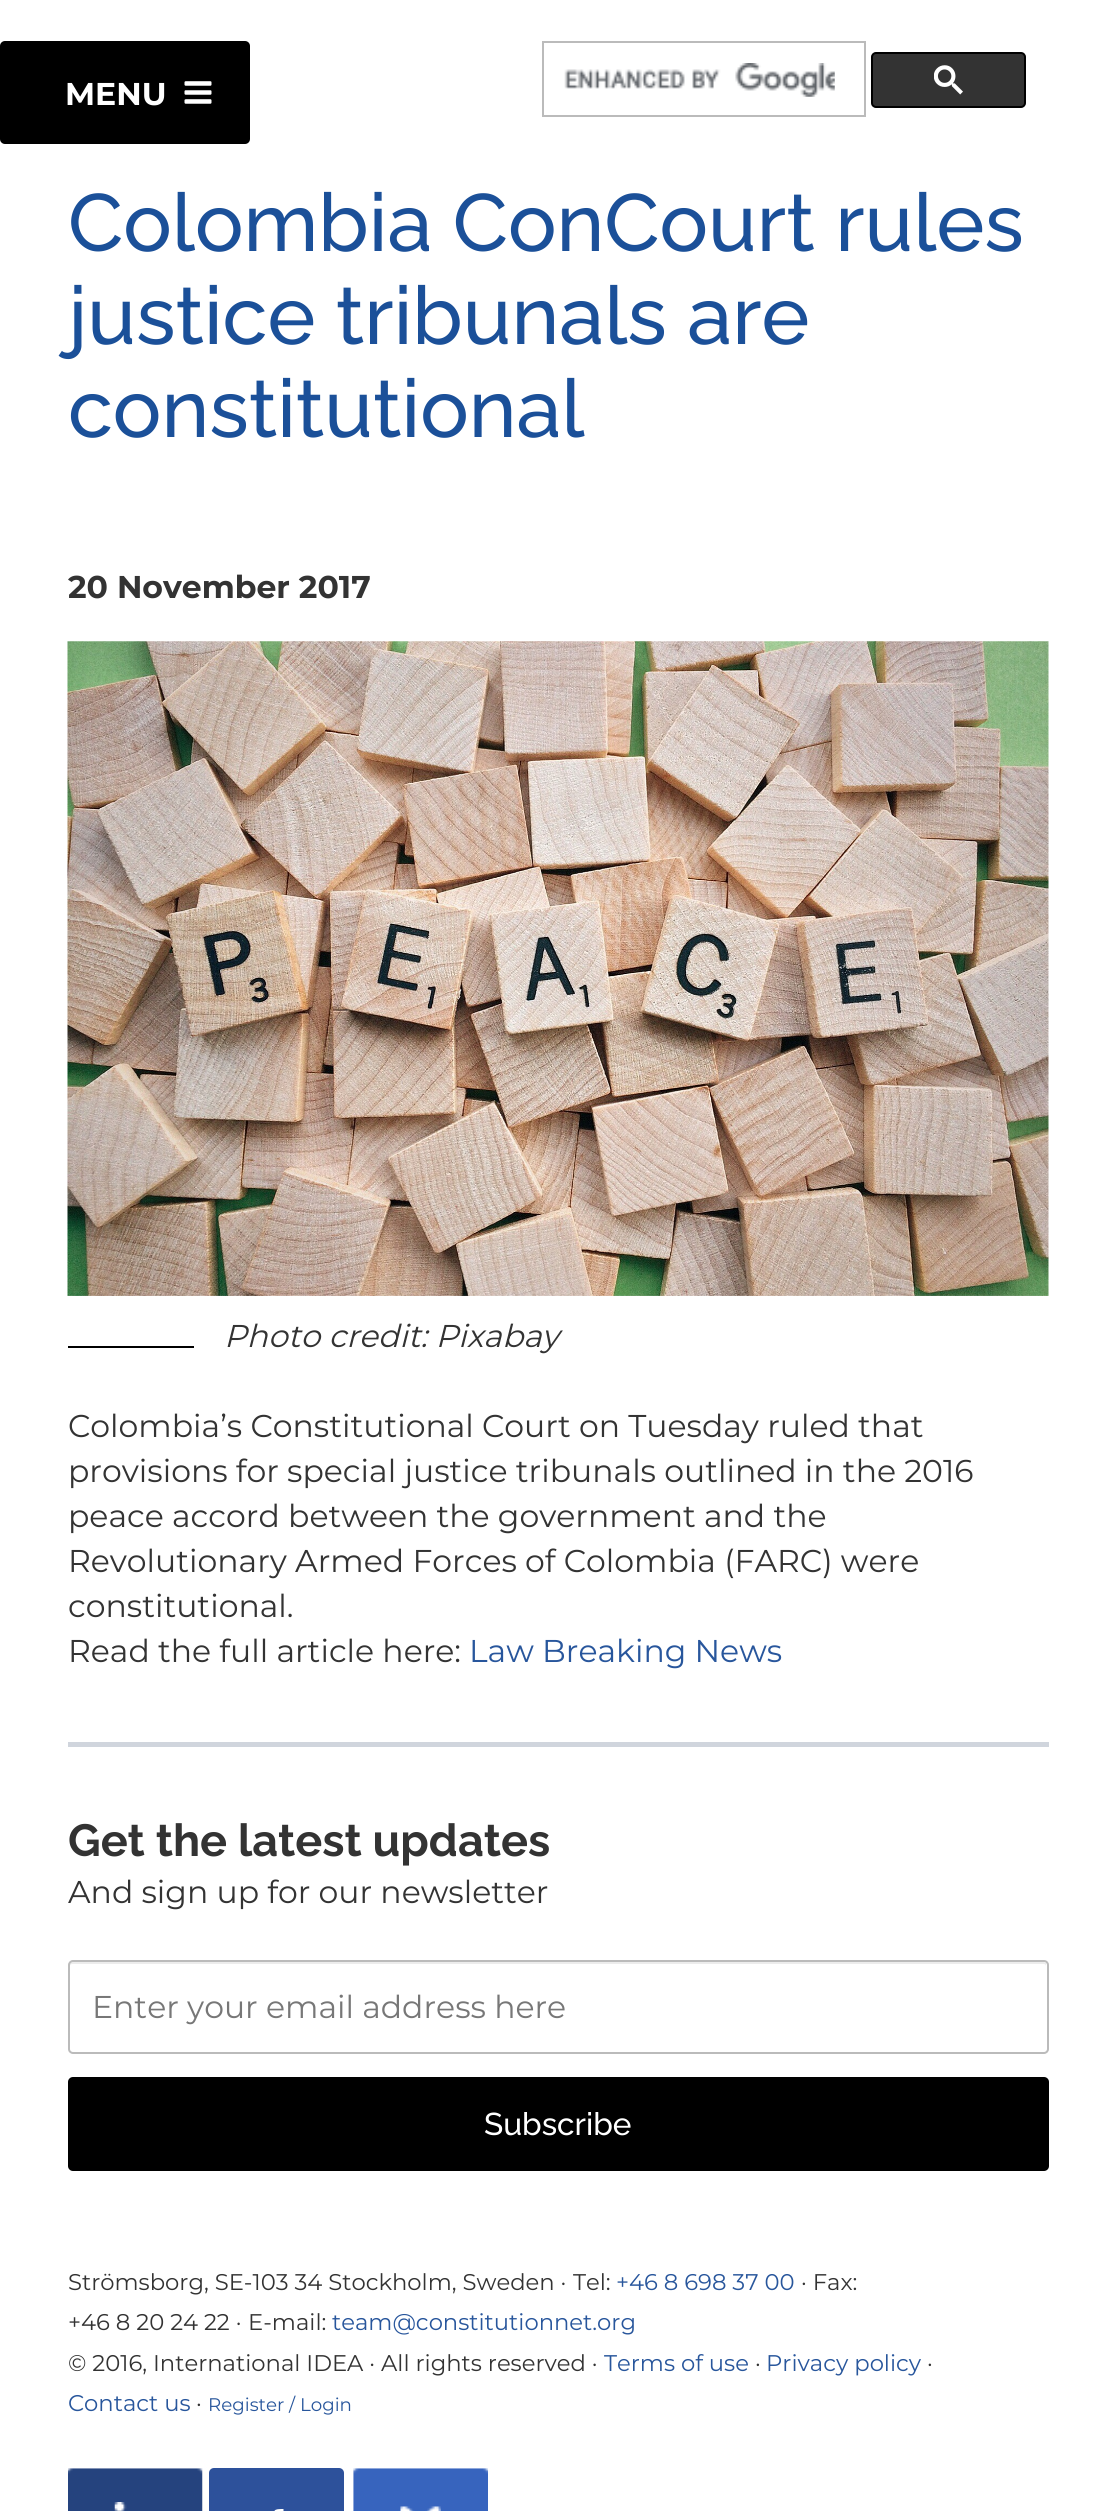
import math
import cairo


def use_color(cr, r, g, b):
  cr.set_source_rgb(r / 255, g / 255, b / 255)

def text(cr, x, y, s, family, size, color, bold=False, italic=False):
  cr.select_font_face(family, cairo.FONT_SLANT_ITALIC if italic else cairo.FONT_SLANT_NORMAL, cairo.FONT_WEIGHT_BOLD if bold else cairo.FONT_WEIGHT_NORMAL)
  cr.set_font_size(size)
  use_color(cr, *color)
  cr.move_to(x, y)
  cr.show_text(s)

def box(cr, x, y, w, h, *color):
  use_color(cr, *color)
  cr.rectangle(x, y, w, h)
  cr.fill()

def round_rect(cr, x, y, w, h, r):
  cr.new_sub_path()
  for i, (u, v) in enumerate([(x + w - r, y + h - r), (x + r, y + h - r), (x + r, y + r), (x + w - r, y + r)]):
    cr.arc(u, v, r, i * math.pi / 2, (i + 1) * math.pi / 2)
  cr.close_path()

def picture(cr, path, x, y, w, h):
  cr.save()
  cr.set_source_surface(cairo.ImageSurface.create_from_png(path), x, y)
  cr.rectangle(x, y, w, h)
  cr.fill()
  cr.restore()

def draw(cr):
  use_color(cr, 255, 255, 255)
  cr.paint()
  use_color(cr, 0, 0, 0)
  round_rect(cr, 0, 41, 250, 103, 5)
  cr.fill()
  picture(cr, "img_01.png", 184, 81, 28, 23)
  cr.rectangle(543, 42, 322, 74)
  use_color(cr, 187, 187, 187)
  cr.stroke()
  picture(cr, "img_02.png", 564, 63, 271, 34)
  use_color(cr, 51, 51, 51)
  round_rect(cr, 872, 53, 153, 54, 4)
  cr.fill_preserve()
  use_color(cr, 0, 0, 0)
  cr.stroke()
  picture(cr, "img_03.png", 934, 65, 29, 30)
  picture(cr, "img_04.png", 67, 641, 982, 655)
  box(cr, 68, 1346, 126, 2, 0, 0, 0)
  box(cr, 68, 1742, 981, 5, 208, 213, 221)
  use_color(cr, 236, 236, 236)
  cr.new_path()
  cr.move_to(72, 1964)
  cr.line_to(1044, 1964)
  cr.curve_to(1045, 1964, 1046, 1965, 1046, 1966)
  cr.line_to(1046, 1963)
  cr.line_to(1044, 1962)
  cr.line_to(72, 1962)
  cr.curve_to(70, 1962, 70, 1964, 70, 1966)
  cr.curve_to(70, 1965, 71, 1964, 72, 1964)
  cr.close_path()
  cr.fill()
  round_rect(cr, 69, 1961, 979, 92, 4)
  use_color(cr, 187, 187, 187)
  cr.stroke()
  use_color(cr, 0, 0, 0)
  round_rect(cr, 68, 2077, 981, 94, 5)
  cr.fill()
  picture(cr, "img_05.png", 68, 2468, 135, 43)
  use_color(cr, 45, 81, 155)
  round_rect(cr, 209, 2468, 135, 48, 5)
  cr.fill()
  picture(cr, "img_06.png", 353, 2468, 135, 43)
  use_color(cr, 255, 255, 255)
  cr.set_fill_rule(cairo.FILL_RULE_EVEN_ODD)
  cr.new_path()
  cr.move_to(273.5, 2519.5)
  cr.line_to(270, 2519.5)
  cr.line_to(270, 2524.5)
  cr.line_to(273.5, 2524.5)
  cr.line_to(273.5, 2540)
  cr.line_to(279, 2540)
  cr.line_to(279, 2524.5)
  cr.line_to(283, 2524.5)
  cr.line_to(283.5, 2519.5)
  cr.line_to(279, 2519.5)
  cr.curve_to(279, 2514.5, 279, 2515.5, 283.5, 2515.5)
  cr.line_to(283.5, 2509)
  cr.curve_to(273.5, 2509, 273.5, 2509.5, 273.5, 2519.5)
  cr.close_path()
  cr.fill()
  text(cr, 65, 105, "MENU", "Montserrat", 31.5, (255, 255, 255), bold=True)
  text(cr, 68, 251, "Colombia ConCourt rules", "Raleway Medium", 81, (27, 80, 153))
  text(cr, 68, 344, "justice tribunals are", "Raleway Medium", 81, (27, 80, 153))
  text(cr, 68, 437, "constitutional", "Raleway Medium", 81, (27, 80, 153))
  text(cr, 68, 598, "20 November 2017", "Montserrat", 31.5, (51, 51, 51), bold=True)
  text(cr, 224, 1347, "Photo credit: Pixabay", "Montserrat", 31.5, (51, 51, 51), italic=True)
  text(cr, 68, 1437, "Colombia’s Constitutional Court on Tuesday ruled that", "Montserrat", 31.5, (51, 51, 51))
  text(cr, 68, 1482, "provisions for special justice tribunals outlined in the 2016", "Montserrat", 31.5, (51, 51, 51))
  text(cr, 68, 1527, "peace accord between the government and the", "Montserrat", 31.5, (51, 51, 51))
  text(cr, 68, 1572, "Revolutionary Armed Forces of Colombia (FARC) were", "Montserrat", 31.5, (51, 51, 51))
  text(cr, 68, 1617, "constitutional.", "Montserrat", 31.5, (51, 51, 51))
  text(cr, 68, 1662, "Read the full article here:", "Montserrat", 31.5, (51, 51, 51))
  text(cr, 469, 1662, "Law Breaking News", "Montserrat", 31.5, (40, 86, 156))
  text(cr, 68, 1856, "Get the latest updates", "Raleway", 45, (51, 51, 51), bold=True)
  text(cr, 68, 1903, "And sign up for our newsletter", "Montserrat", 31.5, (51, 51, 51))
  text(cr, 92, 2018, "Enter your email address here", "Montserrat", 31.5, (119, 119, 119))
  text(cr, 484, 2135, "Subscribe", "Raleway Medium", 31.5, (255, 255, 255))
  text(cr, 68, 2290, "Strömsborg, SE-103 34 Stockholm, Sweden ·", "Montserrat", 22.7, (51, 51, 51))
  text(cr, 573, 2290, "Tel:", "Montserrat", 22.7, (51, 51, 51))
  text(cr, 616, 2290, "+46 8 698 37 00", "Montserrat", 22.7, (40, 86, 156))
  text(cr, 801, 2290, "· Fax:", "Montserrat", 22.7, (51, 51, 51))
  text(cr, 68, 2330, "+46 8 20 24 22 ·", "Montserrat", 22.7, (51, 51, 51))
  text(cr, 248, 2330, "E-mail:", "Montserrat", 22.7, (51, 51, 51))
  text(cr, 332, 2330, "team@constitutionnet.org", "Montserrat", 22.7, (40, 86, 156))
  text(cr, 68, 2371, "© 2016, International IDEA · All rights reserved ·", "Montserrat", 22.7, (51, 51, 51))
  text(cr, 604, 2371, "Terms of use", "Montserrat", 22.7, (40, 86, 156))
  text(cr, 755, 2371, "·", "Montserrat", 22.7, (51, 51, 51))
  text(cr, 766, 2371, "Privacy policy", "Montserrat", 22.7, (40, 86, 156))
  text(cr, 927, 2371, "·", "Montserrat", 22.7, (51, 51, 51))
  text(cr, 68, 2411, "Contact us", "Montserrat", 22.7, (40, 86, 156))
  text(cr, 196, 2411, "·", "Montserrat", 22.7, (51, 51, 51))
  text(cr, 208, 2411, "Register / Login", "Montserrat", 18.25, (40, 86, 156))


surface = cairo.ImageSurface(cairo.FORMAT_RGB24, 1114, 2511)
cr = cairo.Context(surface)
options = cairo.FontOptions()
options.set_hint_metrics(cairo.HINT_METRICS_OFF)
options.set_hint_style(cairo.HINT_STYLE_NONE)
cr.set_font_options(options)
cr.set_miter_limit(4)
draw(cr)
surface.write_to_png("out.png")
